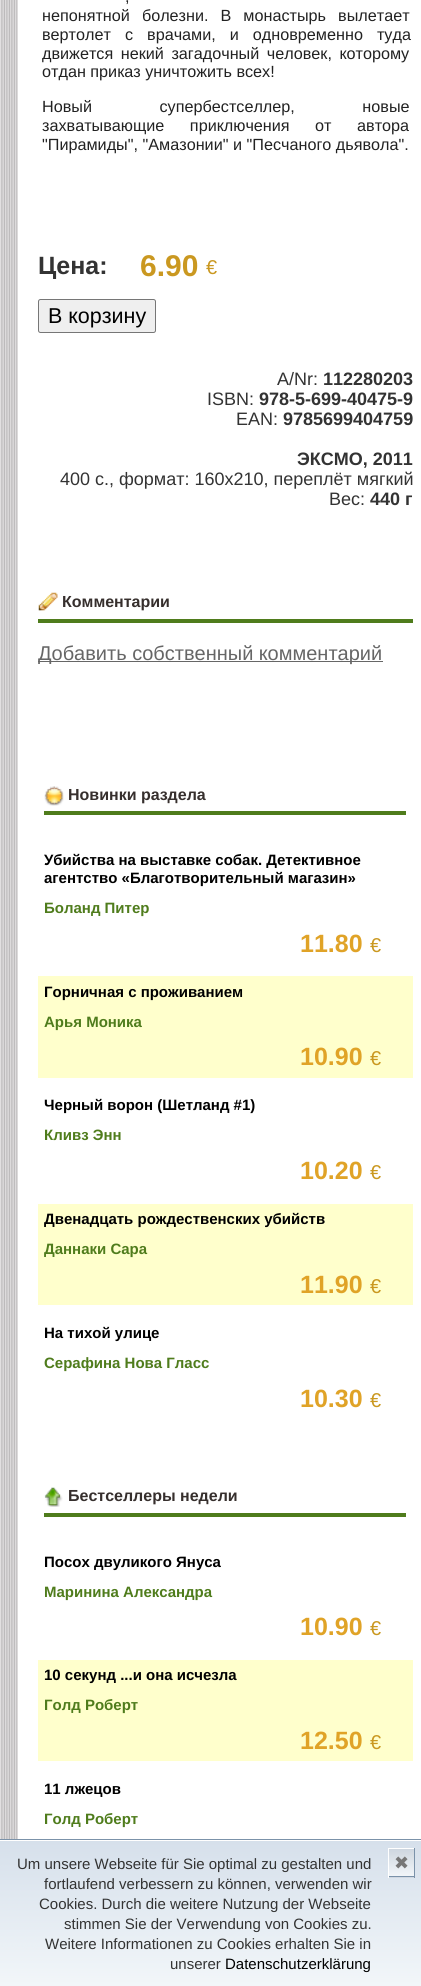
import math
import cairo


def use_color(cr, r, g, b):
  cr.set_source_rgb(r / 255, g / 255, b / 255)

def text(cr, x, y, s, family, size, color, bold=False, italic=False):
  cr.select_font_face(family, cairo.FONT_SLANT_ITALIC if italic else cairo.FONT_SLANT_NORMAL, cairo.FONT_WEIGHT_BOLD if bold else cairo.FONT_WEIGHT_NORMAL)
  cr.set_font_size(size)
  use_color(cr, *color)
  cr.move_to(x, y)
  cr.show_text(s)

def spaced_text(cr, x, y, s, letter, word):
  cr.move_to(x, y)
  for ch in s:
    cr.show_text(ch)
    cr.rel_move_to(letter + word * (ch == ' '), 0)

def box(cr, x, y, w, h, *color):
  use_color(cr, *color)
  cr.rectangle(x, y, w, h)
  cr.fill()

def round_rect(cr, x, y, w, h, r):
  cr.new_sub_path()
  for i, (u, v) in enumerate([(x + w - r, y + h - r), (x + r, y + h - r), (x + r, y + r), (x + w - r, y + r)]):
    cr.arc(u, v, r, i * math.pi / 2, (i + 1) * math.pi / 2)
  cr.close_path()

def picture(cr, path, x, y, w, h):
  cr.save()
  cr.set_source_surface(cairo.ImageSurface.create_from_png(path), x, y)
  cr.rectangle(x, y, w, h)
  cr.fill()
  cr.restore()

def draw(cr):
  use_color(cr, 255, 255, 255)
  cr.paint()
  picture(cr, "img_01.png", 0, 0, 18, 1839)
  use_color(cr, 239, 239, 239)
  round_rect(cr, 38.5, 299.5, 117, 33, 2)
  cr.fill_preserve()
  use_color(cr, 118, 118, 118)
  cr.set_line_width(1)
  cr.stroke()
  picture(cr, "img_02.png", 38, 592, 20, 19)
  box(cr, 38, 619, 375, 4, 79, 124, 28)
  box(cr, 38, 661, 345, 1, 102, 102, 102)
  picture(cr, "img_03.png", 44, 786, 20, 20)
  box(cr, 44, 811, 362, 4, 79, 124, 28)
  box(cr, 38, 976, 375, 102, 255, 255, 204)
  box(cr, 38, 1204, 375, 101, 255, 255, 204)
  picture(cr, "img_04.png", 44, 1487, 19, 20)
  box(cr, 44, 1513, 362, 4, 79, 124, 28)
  box(cr, 38, 1660, 375, 101, 255, 255, 204)
  gradient = cairo.LinearGradient(211, 1841, 211, 1986)
  gradient.add_color_stop_rgba(0, 0.839, 0.878, 0.922, 1)
  gradient.add_color_stop_rgba(1, 0.949, 0.965, 0.976, 1)
  cr.set_source(gradient)
  cr.rectangle(0, 1841, 421, 145)
  cr.fill()
  cr.rectangle(-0.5, 1839.5, 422, 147)
  use_color(cr, 123, 146, 169)
  cr.stroke()
  gradient = cairo.LinearGradient(389, 1849, 389, 1876)
  gradient.add_color_stop_rgba(0, 0.808, 0.839, 0.875, 1)
  gradient.add_color_stop_rgba(1, 0.949, 0.965, 0.976, 1)
  cr.set_source(gradient)
  cr.rectangle(389, 1849, 25, 27)
  cr.fill()
  gradient = cairo.LinearGradient(389, 1876, 389, 1904)
  gradient.add_color_stop_rgba(0, 0.808, 0.839, 0.875, 1)
  gradient.add_color_stop_rgba(1, 0.949, 0.965, 0.976, 1)
  cr.set_source(gradient)
  cr.rectangle(388, 1877, 27, 1)
  cr.fill()
  box(cr, 388, 1848, 27, 1, 255, 255, 255)
  box(cr, 414, 1848, 1, 30, 123, 146, 169)
  box(cr, 388, 1876, 27, 1, 123, 146, 169)
  box(cr, 388, 1848, 1, 30, 255, 255, 255)
  cr.select_font_face("Liberation Sans")
  cr.set_font_size(16.2)
  use_color(cr, 34, 34, 34)
  spaced_text(cr, 125, 2, ",", 0, 9.5)
  spaced_text(cr, 42, 21, "непонятной болезни. В монастырь вылетает", 0, 7.5)
  spaced_text(cr, 42, 40, "вертолет с врачами, и одновременно туда", 0, 9.5)
  spaced_text(cr, 42, 59, "движется некий загадочный человек, которому", 0, 3)
  text(cr, 42, 77, "отдан приказ уничтожить всех!", "Liberation Sans", 16.2, (34, 34, 34))
  spaced_text(cr, 42, 112, "Новый супербестселлер, новые", 0, 63)
  spaced_text(cr, 42, 131, "захватывающие приключения от автора", 0, 21)
  text(cr, 42, 150, "\"Пирамиды\", \"Амазонии\" и \"Песчаного дьявола\".", "Liberation Sans", 16.2, (34, 34, 34))
  text(cr, 38, 274, "Цена:", "Liberation Sans", 25, (51, 51, 51), bold=True)
  text(cr, 140, 276, "6.90", "Liberation Sans", 30, (202, 152, 32), bold=True)
  text(cr, 206, 274, "€", "Liberation Sans", 20, (202, 152, 32))
  text(cr, 48, 323, "В корзину", "Liberation Sans", 21.5, (0, 0, 0))
  text(cr, 277, 385, "A/Nr:", "Liberation Sans", 18, (51, 51, 51))
  text(cr, 323, 385, "112280203", "Liberation Sans", 18, (51, 51, 51), bold=True)
  text(cr, 207, 405, "ISBN:", "Liberation Sans", 18, (51, 51, 51))
  text(cr, 259, 405, "978-5-699-40475-9", "Liberation Sans", 18, (51, 51, 51), bold=True)
  text(cr, 236, 425, "EAN:", "Liberation Sans", 18, (51, 51, 51))
  text(cr, 283, 425, "9785699404759", "Liberation Sans", 18, (51, 51, 51), bold=True)
  text(cr, 297, 465, "ЭКСМО, 2011", "Liberation Sans", 18, (51, 51, 51), bold=True)
  text(cr, 60, 485, "400 с., формат: 160х210, переплёт мягкий", "Liberation Sans", 18, (51, 51, 51))
  text(cr, 329, 505, "Вес:", "Liberation Sans", 18, (51, 51, 51))
  text(cr, 370, 505, "440 г", "Liberation Sans", 18, (51, 51, 51), bold=True)
  text(cr, 62, 607, "Комментарии", "Liberation Sans", 16, (54, 47, 45), bold=True)
  text(cr, 38, 660, "Добавить собственный комментарий", "Liberation Sans", 20, (102, 102, 102))
  text(cr, 68, 800, "Новинки раздела", "Liberation Sans", 16, (54, 47, 45), bold=True)
  text(cr, 44, 865, "Убийства на выставке собак. Детективное", "Liberation Sans", 15, (0, 0, 0), bold=True)
  text(cr, 44, 883, "агентство «Благотворительный магазин»", "Liberation Sans", 15, (0, 0, 0), bold=True)
  text(cr, 44, 913, "Боланд Питер", "Liberation Sans", 15, (79, 124, 28), bold=True)
  text(cr, 300, 952, "11.80", "Liberation Sans", 25, (224, 163, 39), bold=True)
  text(cr, 370, 952, "€", "Liberation Sans", 20, (202, 152, 32))
  text(cr, 44, 997, "Горничная с проживанием", "Liberation Sans", 15, (0, 0, 0), bold=True)
  text(cr, 44, 1027, "Арья Моника", "Liberation Sans", 15, (79, 124, 28), bold=True)
  text(cr, 300, 1065, "10.90", "Liberation Sans", 25, (224, 163, 39), bold=True)
  text(cr, 370, 1065, "€", "Liberation Sans", 20, (202, 152, 32))
  text(cr, 44, 1110, "Черный ворон (Шетланд #1)", "Liberation Sans", 15, (0, 0, 0), bold=True)
  text(cr, 44, 1140, "Кливз Энн", "Liberation Sans", 15, (79, 124, 28), bold=True)
  text(cr, 300, 1179, "10.20", "Liberation Sans", 25, (224, 163, 39), bold=True)
  text(cr, 370, 1179, "€", "Liberation Sans", 20, (202, 152, 32))
  text(cr, 44, 1224, "Двенадцать рождественских убийств", "Liberation Sans", 15, (0, 0, 0), bold=True)
  text(cr, 44, 1254, "Даннаки Сара", "Liberation Sans", 15, (79, 124, 28), bold=True)
  text(cr, 300, 1293, "11.90", "Liberation Sans", 25, (224, 163, 39), bold=True)
  text(cr, 370, 1293, "€", "Liberation Sans", 20, (202, 152, 32))
  text(cr, 44, 1338, "На тихой улице", "Liberation Sans", 15, (0, 0, 0), bold=True)
  text(cr, 44, 1368, "Серафина Нова Гласс", "Liberation Sans", 15, (79, 124, 28), bold=True)
  text(cr, 300, 1407, "10.30", "Liberation Sans", 25, (224, 163, 39), bold=True)
  text(cr, 370, 1407, "€", "Liberation Sans", 20, (202, 152, 32))
  text(cr, 68, 1501, "Бестселлеры недели", "Liberation Sans", 16, (54, 47, 45), bold=True)
  text(cr, 44, 1567, "Посох двуликого Януса", "Liberation Sans", 15, (0, 0, 0), bold=True)
  text(cr, 44, 1597, "Маринина Александра", "Liberation Sans", 15, (79, 124, 28), bold=True)
  text(cr, 300, 1635, "10.90", "Liberation Sans", 25, (224, 163, 39), bold=True)
  text(cr, 370, 1635, "€", "Liberation Sans", 20, (202, 152, 32))
  text(cr, 44, 1680, "10 секунд ...и она исчезла", "Liberation Sans", 15, (0, 0, 0), bold=True)
  text(cr, 44, 1710, "Голд Роберт", "Liberation Sans", 15, (79, 124, 28), bold=True)
  text(cr, 300, 1749, "12.50", "Liberation Sans", 25, (224, 163, 39), bold=True)
  text(cr, 370, 1749, "€", "Liberation Sans", 20, (202, 152, 32))
  text(cr, 44, 1794, "11 лжецов", "Liberation Sans", 15, (0, 0, 0), bold=True)
  text(cr, 44, 1824, "Голд Роберт", "Liberation Sans", 15, (79, 124, 28), bold=True)
  text(cr, 17, 1869, "Um unsere Webseite für Sie optimal zu gestalten und", "Liberation Sans", 15, (51, 51, 51))
  text(cr, 394, 1869, "✖", "DejaVu Sans", 18, (119, 119, 119))
  text(cr, 44, 1889, "fortlaufend verbessern zu können, verwenden wir", "Liberation Sans", 15, (51, 51, 51))
  text(cr, 39, 1909, "Cookies. Durch die weitere Nutzung der Webseite", "Liberation Sans", 15, (51, 51, 51))
  text(cr, 64, 1929, "stimmen Sie der Verwendung von Cookies zu.", "Liberation Sans", 15, (51, 51, 51))
  text(cr, 45, 1949, "Weitere Informationen zu Cookies erhalten Sie in", "Liberation Sans", 15, (51, 51, 51))
  text(cr, 170, 1969, "unserer", "Liberation Sans", 15, (51, 51, 51))
  text(cr, 225, 1969, "Datenschutzerklärung", "Liberation Sans", 15, (0, 0, 0))


surface = cairo.ImageSurface(cairo.FORMAT_RGB24, 421, 1986)
cr = cairo.Context(surface)
options = cairo.FontOptions()
options.set_hint_metrics(cairo.HINT_METRICS_OFF)
options.set_hint_style(cairo.HINT_STYLE_NONE)
cr.set_font_options(options)
cr.set_miter_limit(4)
draw(cr)
surface.write_to_png("out.png")
